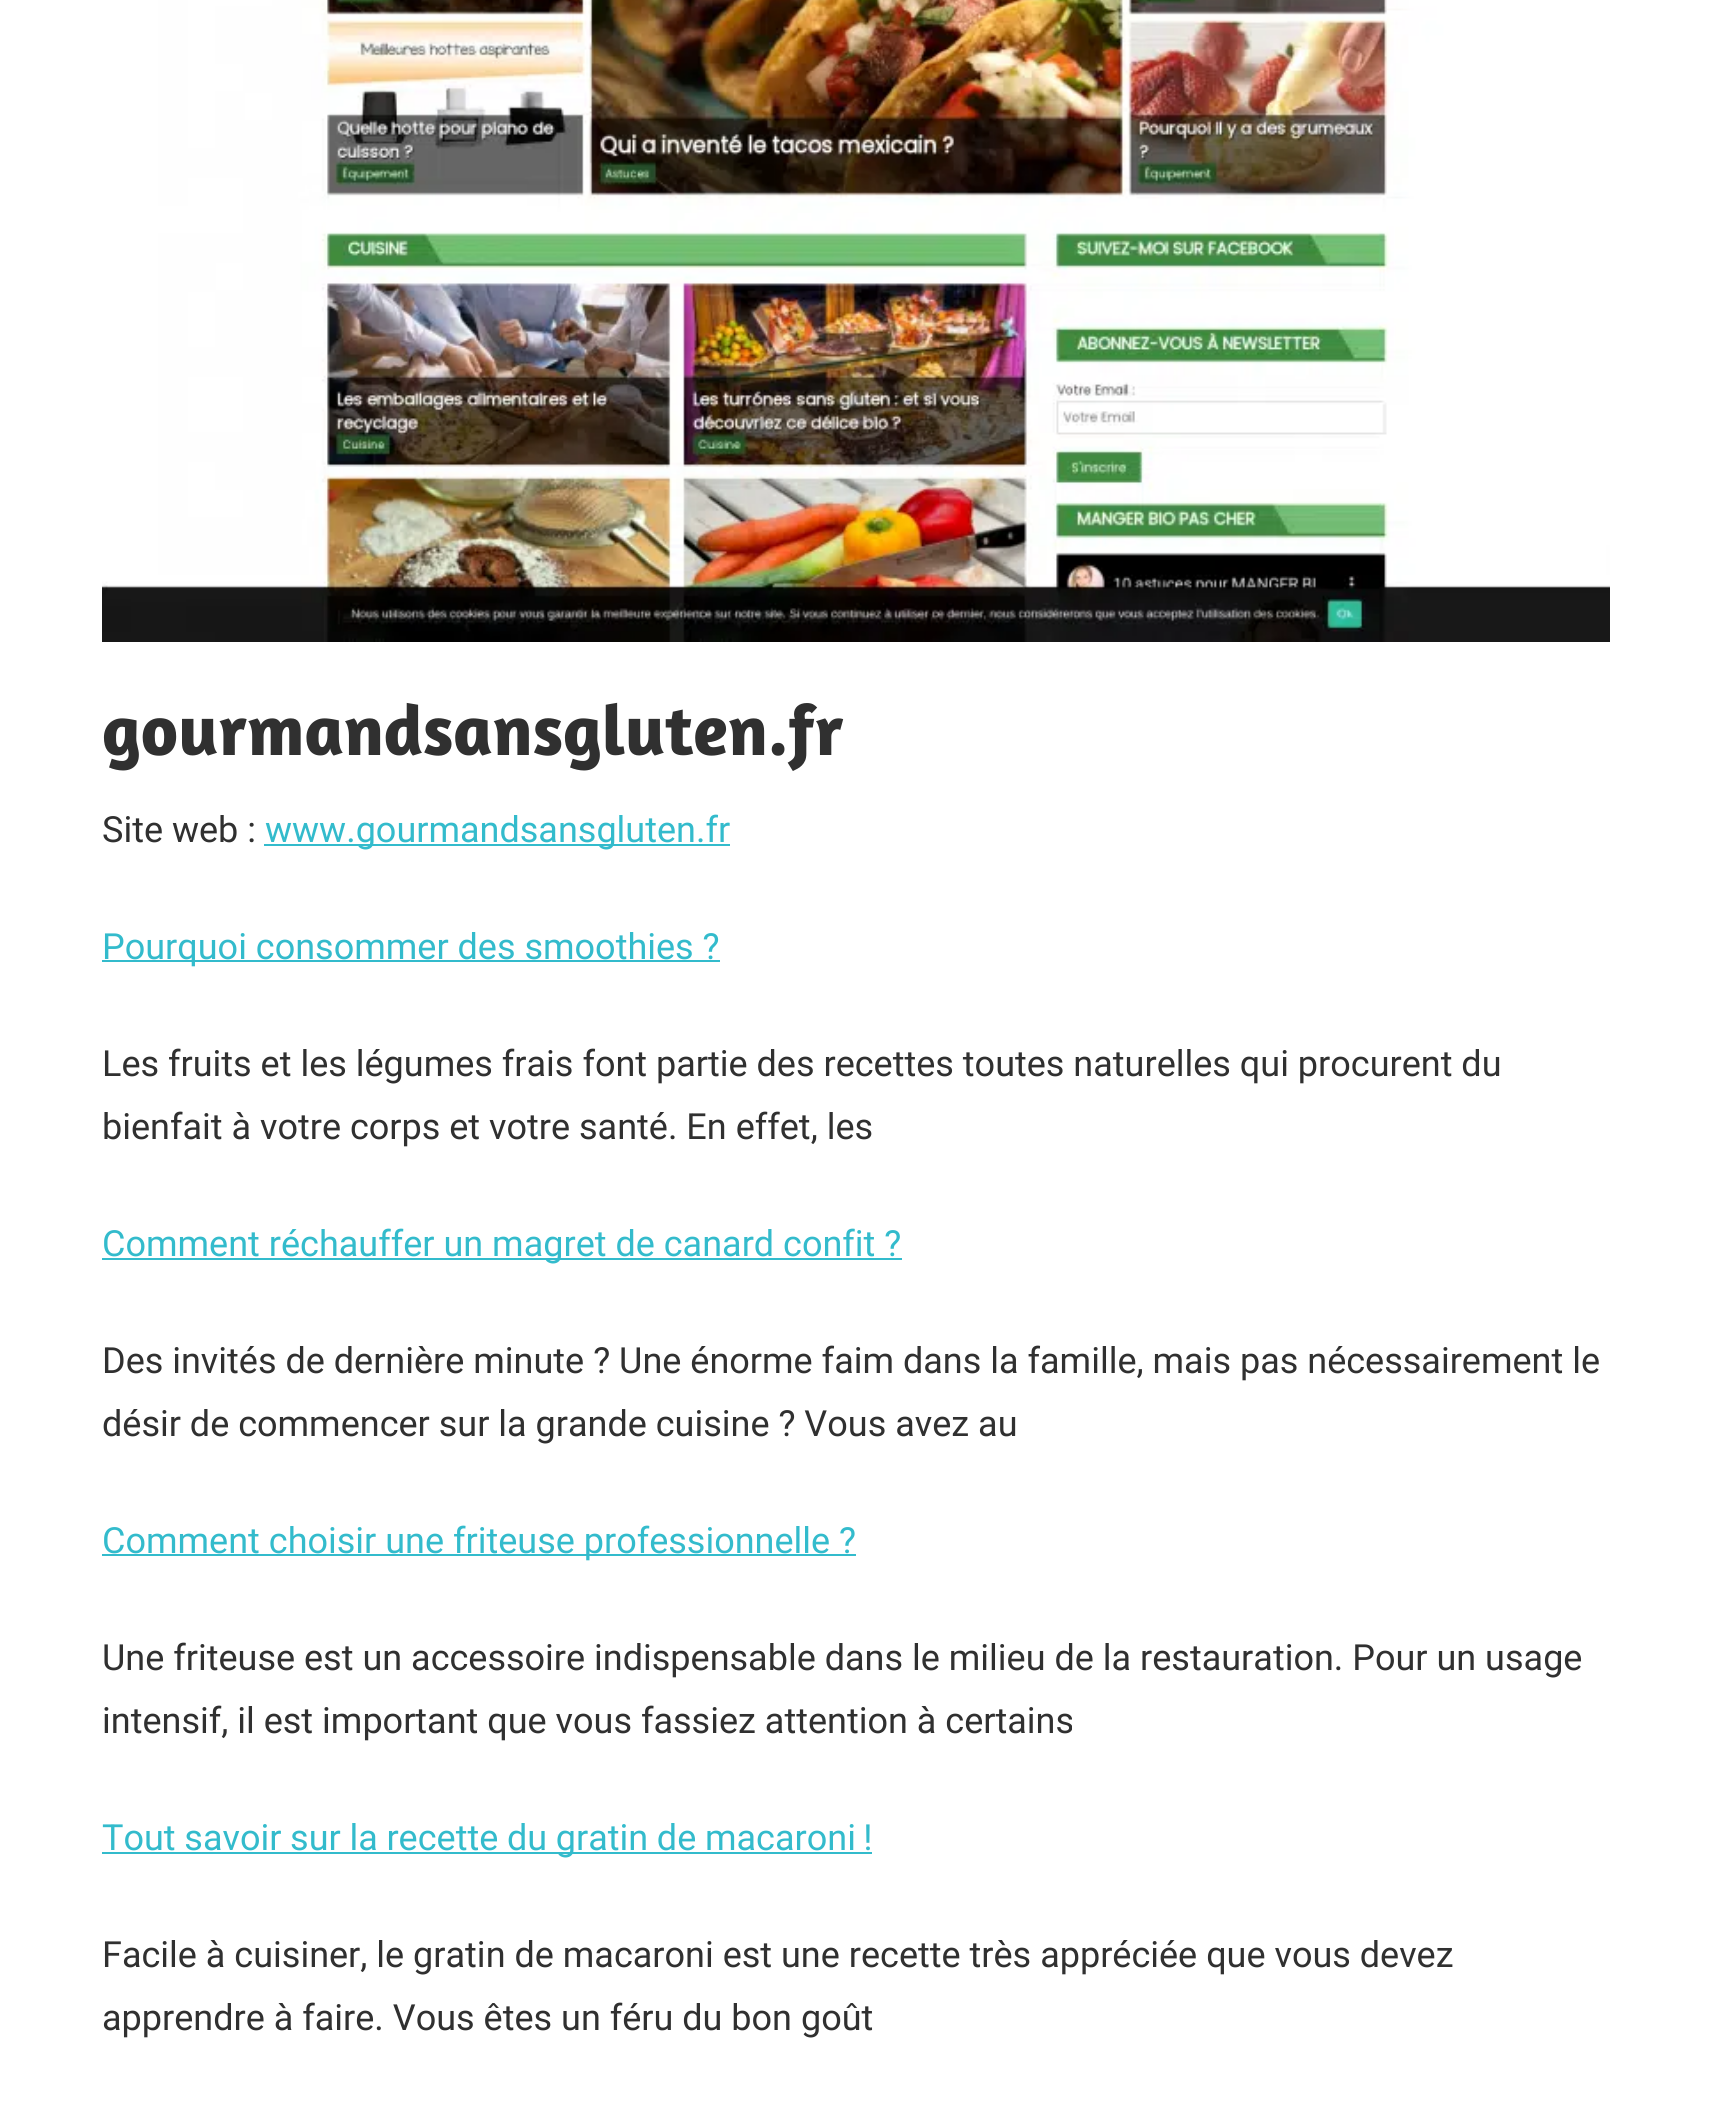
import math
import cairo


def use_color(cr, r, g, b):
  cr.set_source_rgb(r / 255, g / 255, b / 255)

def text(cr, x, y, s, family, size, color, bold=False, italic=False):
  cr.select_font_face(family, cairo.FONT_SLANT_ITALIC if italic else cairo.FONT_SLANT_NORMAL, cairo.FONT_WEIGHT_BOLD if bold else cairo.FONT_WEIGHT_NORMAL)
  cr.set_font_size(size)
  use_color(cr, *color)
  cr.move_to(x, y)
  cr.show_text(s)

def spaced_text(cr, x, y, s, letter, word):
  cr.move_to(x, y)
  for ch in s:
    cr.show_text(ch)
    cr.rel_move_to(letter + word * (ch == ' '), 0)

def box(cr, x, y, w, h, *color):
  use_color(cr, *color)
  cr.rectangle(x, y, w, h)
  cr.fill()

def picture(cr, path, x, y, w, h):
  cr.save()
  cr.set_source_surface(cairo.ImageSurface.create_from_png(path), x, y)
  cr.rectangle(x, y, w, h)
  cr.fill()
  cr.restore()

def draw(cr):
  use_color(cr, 255, 255, 255)
  cr.paint()
  picture(cr, "img_01.png", 102, 0, 1508, 642)
  box(cr, 264, 844, 466, 2, 51, 187, 204)
  box(cr, 102, 960, 618, 2, 51, 187, 204)
  box(cr, 102, 1258, 800, 2, 51, 187, 204)
  box(cr, 102, 1554, 754, 2, 51, 187, 204)
  box(cr, 102, 1852, 770, 2, 51, 187, 204)
  text(cr, 102, 755, "gourmandsansgluten.fr", "Amaranth", 72, (48, 48, 48), bold=True)
  text(cr, 102, 842, "Site web :", "Roboto", 36, (48, 48, 48))
  text(cr, 265, 842, "www.gourmandsansgluten.fr", "Roboto", 36, (51, 187, 204))
  text(cr, 102, 959, "Pourquoi consommer des smoothies ?", "Roboto", 36, (51, 187, 204))
  text(cr, 102, 1076, "Les fruits et les légumes frais font partie des recettes toutes naturelles qui procurent du", "Roboto", 36, (48, 48, 48))
  text(cr, 102, 1139, "bienfait à votre corps et votre santé. En effet, les", "Roboto", 36, (48, 48, 48))
  text(cr, 102, 1256, "Comment réchauffer un magret de canard confit ?", "Roboto", 36, (51, 187, 204))
  text(cr, 102, 1373, "Des invités de dernière minute ? Une énorme faim dans la famille, mais pas nécessairement le", "Roboto", 36, (48, 48, 48))
  text(cr, 102, 1436, "désir de commencer sur la grande cuisine ? Vous avez au", "Roboto", 36, (48, 48, 48))
  text(cr, 102, 1553, "Comment choisir une friteuse professionnelle ?", "Roboto", 36, (51, 187, 204))
  text(cr, 102, 1670, "Une friteuse est un accessoire indispensable dans le milieu de la restauration. Pour un usage", "Roboto", 36, (48, 48, 48))
  text(cr, 102, 1733, "intensif, il est important que vous fassiez attention à certains", "Roboto", 36, (48, 48, 48))
  use_color(cr, 51, 187, 204)
  spaced_text(cr, 102, 1850, "Tout savoir sur la recette du gratin de macaroni !", 0, -0.25)
  text(cr, 102, 1967, "Facile à cuisiner, le gratin de macaroni est une recette très appréciée que vous devez", "Roboto", 36, (48, 48, 48))
  text(cr, 102, 2030, "apprendre à faire. Vous êtes un féru du bon goût", "Roboto", 36, (48, 48, 48))


surface = cairo.ImageSurface(cairo.FORMAT_RGB24, 1712, 2111)
cr = cairo.Context(surface)
options = cairo.FontOptions()
options.set_hint_metrics(cairo.HINT_METRICS_OFF)
options.set_hint_style(cairo.HINT_STYLE_NONE)
cr.set_font_options(options)
cr.set_miter_limit(4)
draw(cr)
surface.write_to_png("out.png")
